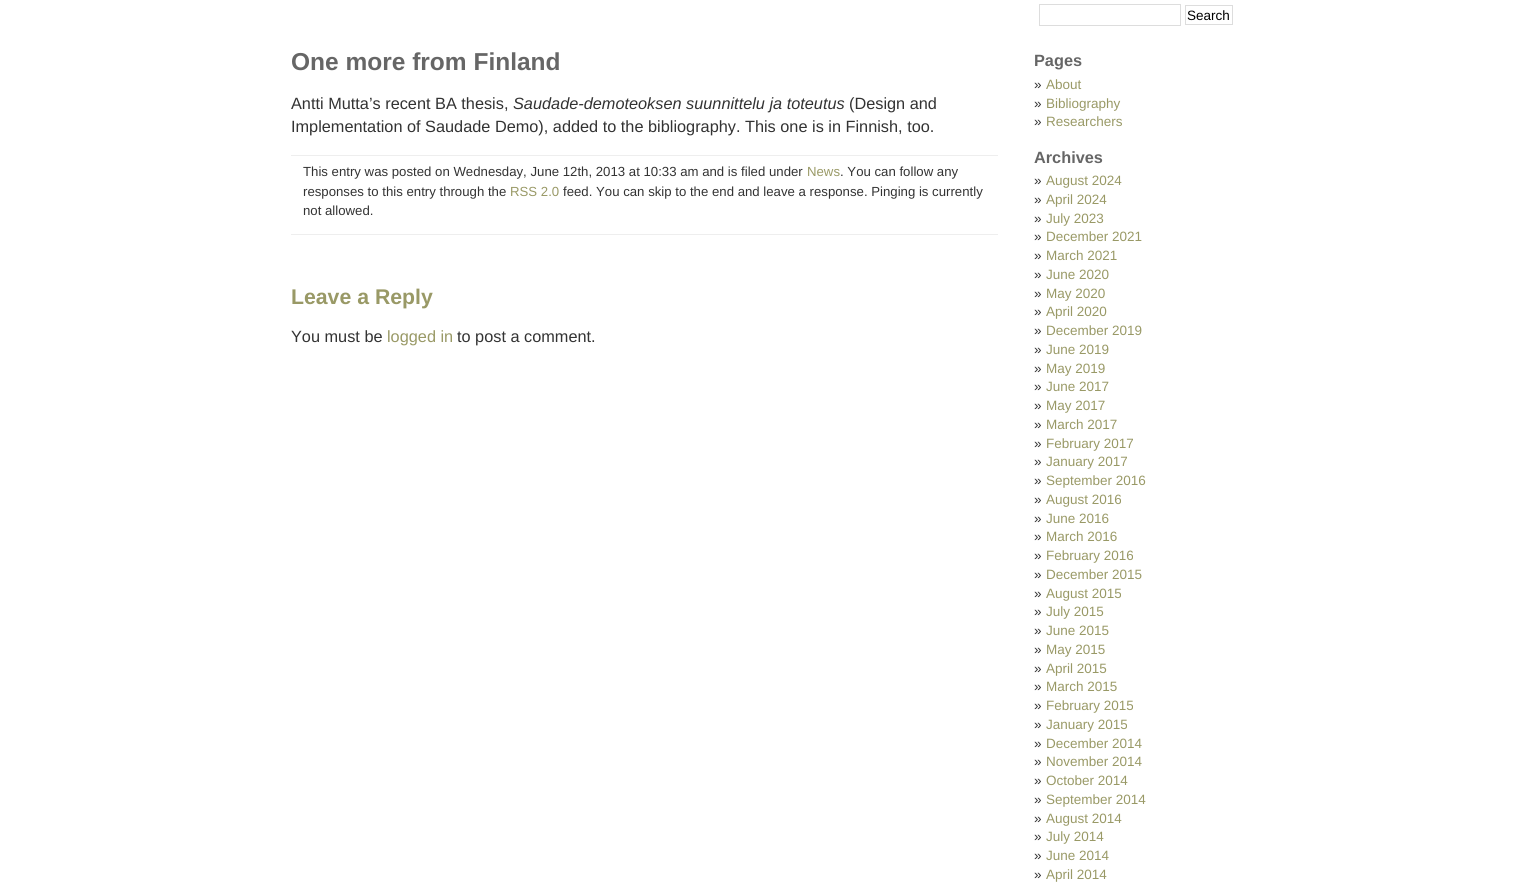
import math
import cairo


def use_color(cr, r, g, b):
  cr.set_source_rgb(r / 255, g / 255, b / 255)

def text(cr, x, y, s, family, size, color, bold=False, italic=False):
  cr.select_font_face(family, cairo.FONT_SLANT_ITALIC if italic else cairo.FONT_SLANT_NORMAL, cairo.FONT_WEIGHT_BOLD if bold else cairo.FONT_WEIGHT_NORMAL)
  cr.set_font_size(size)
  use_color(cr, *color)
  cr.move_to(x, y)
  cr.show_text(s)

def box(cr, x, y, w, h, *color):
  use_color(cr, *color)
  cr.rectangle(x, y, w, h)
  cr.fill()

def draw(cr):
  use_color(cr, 255, 255, 255)
  cr.paint()
  box(cr, 291, 155, 707, 1, 238, 238, 238)
  box(cr, 291, 234, 707, 1, 238, 238, 238)
  cr.rectangle(1039.5, 4.5, 141, 21)
  use_color(cr, 221, 221, 221)
  cr.set_line_width(1)
  cr.stroke()
  cr.rectangle(1185.5, 5.5, 47, 19)
  cr.stroke()
  text(cr, 291, 70, "One more from Finland", "Liberation Sans", 24.5, (102, 102, 102), bold=True)
  text(cr, 291, 109, "Antti Mutta’s recent BA thesis,", "Liberation Sans", 16.3, (51, 51, 51))
  text(cr, 513, 109, "Saudade-demoteoksen suunnittelu ja toteutus", "Liberation Sans", 16.3, (51, 51, 51), italic=True)
  text(cr, 849, 109, "(Design and", "Liberation Sans", 16.3, (51, 51, 51))
  text(cr, 291, 132, "Implementation of Saudade Demo), added to the bibliography. This one is in Finnish, too.", "Liberation Sans", 16.3, (51, 51, 51))
  text(cr, 303, 176, "This entry was posted on Wednesday, June 12th, 2013 at 10:33 am and is filed under", "Liberation Sans", 13.2, (51, 51, 51))
  text(cr, 807, 176, "News", "Liberation Sans", 13.2, (153, 153, 102))
  text(cr, 840, 176, ". You can follow any", "Liberation Sans", 13.2, (51, 51, 51))
  text(cr, 303, 196, "responses to this entry through the", "Liberation Sans", 13.2, (51, 51, 51))
  text(cr, 510, 196, "RSS 2.0", "Liberation Sans", 13.2, (153, 153, 102))
  text(cr, 563, 196, "feed. You can skip to the end and leave a response. Pinging is currently", "Liberation Sans", 13.2, (51, 51, 51))
  text(cr, 303, 215, "not allowed.", "Liberation Sans", 13.2, (51, 51, 51))
  text(cr, 291, 304, "Leave a Reply", "Liberation Sans", 21.25, (153, 153, 102), bold=True)
  text(cr, 291, 342, "You must be", "Liberation Sans", 16.3, (51, 51, 51))
  text(cr, 387, 342, "logged in", "Liberation Sans", 16.3, (153, 153, 102))
  text(cr, 457, 342, "to post a comment.", "Liberation Sans", 16.3, (51, 51, 51))
  text(cr, 1187, 20, "Search", "Liberation Sans", 13.5, (0, 0, 0))
  text(cr, 1034, 66, "Pages", "Liberation Sans", 16.3, (102, 102, 102), bold=True)
  text(cr, 1034, 89, "»", "Liberation Sans", 13.5, (51, 51, 51))
  text(cr, 1046, 89, "About", "Liberation Sans", 13.5, (153, 153, 102))
  text(cr, 1034, 108, "»", "Liberation Sans", 13.5, (51, 51, 51))
  text(cr, 1046, 108, "Bibliography", "Liberation Sans", 13.5, (153, 153, 102))
  text(cr, 1034, 126, "»", "Liberation Sans", 13.5, (51, 51, 51))
  text(cr, 1046, 126, "Researchers", "Liberation Sans", 13.5, (153, 153, 102))
  text(cr, 1034, 163, "Archives", "Liberation Sans", 16.3, (102, 102, 102), bold=True)
  text(cr, 1034, 185, "»", "Liberation Sans", 13.5, (51, 51, 51))
  text(cr, 1046, 185, "August 2024", "Liberation Sans", 13.5, (153, 153, 102))
  text(cr, 1034, 204, "»", "Liberation Sans", 13.5, (51, 51, 51))
  text(cr, 1046, 204, "April 2024", "Liberation Sans", 13.5, (153, 153, 102))
  text(cr, 1034, 223, "»", "Liberation Sans", 13.5, (51, 51, 51))
  text(cr, 1046, 223, "July 2023", "Liberation Sans", 13.5, (153, 153, 102))
  text(cr, 1034, 241, "»", "Liberation Sans", 13.5, (51, 51, 51))
  text(cr, 1046, 241, "December 2021", "Liberation Sans", 13.5, (153, 153, 102))
  text(cr, 1034, 260, "»", "Liberation Sans", 13.5, (51, 51, 51))
  text(cr, 1046, 260, "March 2021", "Liberation Sans", 13.5, (153, 153, 102))
  text(cr, 1034, 279, "»", "Liberation Sans", 13.5, (51, 51, 51))
  text(cr, 1046, 279, "June 2020", "Liberation Sans", 13.5, (153, 153, 102))
  text(cr, 1034, 298, "»", "Liberation Sans", 13.5, (51, 51, 51))
  text(cr, 1046, 298, "May 2020", "Liberation Sans", 13.5, (153, 153, 102))
  text(cr, 1034, 316, "»", "Liberation Sans", 13.5, (51, 51, 51))
  text(cr, 1046, 316, "April 2020", "Liberation Sans", 13.5, (153, 153, 102))
  text(cr, 1034, 335, "»", "Liberation Sans", 13.5, (51, 51, 51))
  text(cr, 1046, 335, "December 2019", "Liberation Sans", 13.5, (153, 153, 102))
  text(cr, 1034, 354, "»", "Liberation Sans", 13.5, (51, 51, 51))
  text(cr, 1046, 354, "June 2019", "Liberation Sans", 13.5, (153, 153, 102))
  text(cr, 1034, 373, "»", "Liberation Sans", 13.5, (51, 51, 51))
  text(cr, 1046, 373, "May 2019", "Liberation Sans", 13.5, (153, 153, 102))
  text(cr, 1034, 391, "»", "Liberation Sans", 13.5, (51, 51, 51))
  text(cr, 1046, 391, "June 2017", "Liberation Sans", 13.5, (153, 153, 102))
  text(cr, 1034, 410, "»", "Liberation Sans", 13.5, (51, 51, 51))
  text(cr, 1046, 410, "May 2017", "Liberation Sans", 13.5, (153, 153, 102))
  text(cr, 1034, 429, "»", "Liberation Sans", 13.5, (51, 51, 51))
  text(cr, 1046, 429, "March 2017", "Liberation Sans", 13.5, (153, 153, 102))
  text(cr, 1034, 448, "»", "Liberation Sans", 13.5, (51, 51, 51))
  text(cr, 1046, 448, "February 2017", "Liberation Sans", 13.5, (153, 153, 102))
  text(cr, 1034, 466, "»", "Liberation Sans", 13.5, (51, 51, 51))
  text(cr, 1046, 466, "January 2017", "Liberation Sans", 13.5, (153, 153, 102))
  text(cr, 1034, 485, "»", "Liberation Sans", 13.5, (51, 51, 51))
  text(cr, 1046, 485, "September 2016", "Liberation Sans", 13.5, (153, 153, 102))
  text(cr, 1034, 504, "»", "Liberation Sans", 13.5, (51, 51, 51))
  text(cr, 1046, 504, "August 2016", "Liberation Sans", 13.5, (153, 153, 102))
  text(cr, 1034, 523, "»", "Liberation Sans", 13.5, (51, 51, 51))
  text(cr, 1046, 523, "June 2016", "Liberation Sans", 13.5, (153, 153, 102))
  text(cr, 1034, 541, "»", "Liberation Sans", 13.5, (51, 51, 51))
  text(cr, 1046, 541, "March 2016", "Liberation Sans", 13.5, (153, 153, 102))
  text(cr, 1034, 560, "»", "Liberation Sans", 13.5, (51, 51, 51))
  text(cr, 1046, 560, "February 2016", "Liberation Sans", 13.5, (153, 153, 102))
  text(cr, 1034, 579, "»", "Liberation Sans", 13.5, (51, 51, 51))
  text(cr, 1046, 579, "December 2015", "Liberation Sans", 13.5, (153, 153, 102))
  text(cr, 1034, 598, "»", "Liberation Sans", 13.5, (51, 51, 51))
  text(cr, 1046, 598, "August 2015", "Liberation Sans", 13.5, (153, 153, 102))
  text(cr, 1034, 616, "»", "Liberation Sans", 13.5, (51, 51, 51))
  text(cr, 1046, 616, "July 2015", "Liberation Sans", 13.5, (153, 153, 102))
  text(cr, 1034, 635, "»", "Liberation Sans", 13.5, (51, 51, 51))
  text(cr, 1046, 635, "June 2015", "Liberation Sans", 13.5, (153, 153, 102))
  text(cr, 1034, 654, "»", "Liberation Sans", 13.5, (51, 51, 51))
  text(cr, 1046, 654, "May 2015", "Liberation Sans", 13.5, (153, 153, 102))
  text(cr, 1034, 673, "»", "Liberation Sans", 13.5, (51, 51, 51))
  text(cr, 1046, 673, "April 2015", "Liberation Sans", 13.5, (153, 153, 102))
  text(cr, 1034, 691, "»", "Liberation Sans", 13.5, (51, 51, 51))
  text(cr, 1046, 691, "March 2015", "Liberation Sans", 13.5, (153, 153, 102))
  text(cr, 1034, 710, "»", "Liberation Sans", 13.5, (51, 51, 51))
  text(cr, 1046, 710, "February 2015", "Liberation Sans", 13.5, (153, 153, 102))
  text(cr, 1034, 729, "»", "Liberation Sans", 13.5, (51, 51, 51))
  text(cr, 1046, 729, "January 2015", "Liberation Sans", 13.5, (153, 153, 102))
  text(cr, 1034, 748, "»", "Liberation Sans", 13.5, (51, 51, 51))
  text(cr, 1046, 748, "December 2014", "Liberation Sans", 13.5, (153, 153, 102))
  text(cr, 1034, 766, "»", "Liberation Sans", 13.5, (51, 51, 51))
  text(cr, 1046, 766, "November 2014", "Liberation Sans", 13.5, (153, 153, 102))
  text(cr, 1034, 785, "»", "Liberation Sans", 13.5, (51, 51, 51))
  text(cr, 1046, 785, "October 2014", "Liberation Sans", 13.5, (153, 153, 102))
  text(cr, 1034, 804, "»", "Liberation Sans", 13.5, (51, 51, 51))
  text(cr, 1046, 804, "September 2014", "Liberation Sans", 13.5, (153, 153, 102))
  text(cr, 1034, 823, "»", "Liberation Sans", 13.5, (51, 51, 51))
  text(cr, 1046, 823, "August 2014", "Liberation Sans", 13.5, (153, 153, 102))
  text(cr, 1034, 841, "»", "Liberation Sans", 13.5, (51, 51, 51))
  text(cr, 1046, 841, "July 2014", "Liberation Sans", 13.5, (153, 153, 102))
  text(cr, 1034, 860, "»", "Liberation Sans", 13.5, (51, 51, 51))
  text(cr, 1046, 860, "June 2014", "Liberation Sans", 13.5, (153, 153, 102))
  text(cr, 1034, 879, "»", "Liberation Sans", 13.5, (51, 51, 51))
  text(cr, 1046, 879, "April 2014", "Liberation Sans", 13.5, (153, 153, 102))


surface = cairo.ImageSurface(cairo.FORMAT_RGB24, 1518, 886)
cr = cairo.Context(surface)
options = cairo.FontOptions()
options.set_hint_metrics(cairo.HINT_METRICS_OFF)
options.set_hint_style(cairo.HINT_STYLE_NONE)
cr.set_font_options(options)
cr.set_miter_limit(4)
draw(cr)
surface.write_to_png("out.png")
